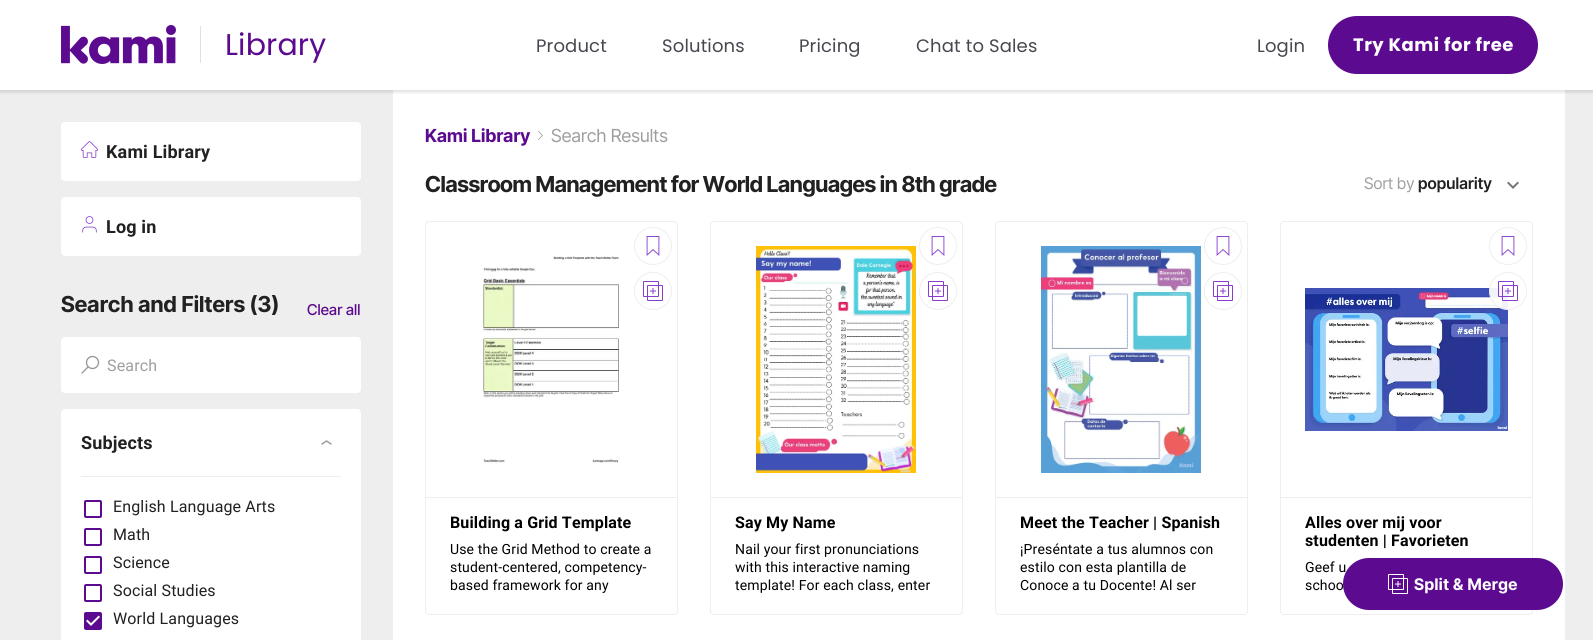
import math
import cairo


def use_color(cr, r, g, b):
  cr.set_source_rgb(r / 255, g / 255, b / 255)

def spaced_text(cr, x, y, s, letter, word):
  cr.move_to(x, y)
  for ch in s:
    cr.show_text(ch)
    cr.rel_move_to(letter + word * (ch == ' '), 0)

def box(cr, x, y, w, h, *color):
  use_color(cr, *color)
  cr.rectangle(x, y, w, h)
  cr.fill()

def round_rect(cr, x, y, w, h, r):
  cr.new_sub_path()
  for i, (u, v) in enumerate([(x + w - r, y + h - r), (x + r, y + h - r), (x + r, y + r), (x + w - r, y + r)]):
    cr.arc(u, v, r, i * math.pi / 2, (i + 1) * math.pi / 2)
  cr.close_path()

def shadow(cr, x, y, w, h, r, blur, alpha):
  cr.push_group_with_content(cairo.CONTENT_ALPHA)
  cr.set_operator(cairo.OPERATOR_SOURCE)
  for i in range(15, -16, -2):
    e = blur * i / 6
    if min(w, h) + 2 * e > 0:
      cr.set_source_rgba(0, 0, 0, alpha * math.erfc((i - 1) / 8.5) / 2)
      round_rect(cr, x - e, y - e, w + 2 * e, h + 2 * e, max(0, min(r + e + blur * .6, min(w, h) / 2 + e)))
      cr.fill()
  cr.mask(cr.pop_group())

def picture(cr, path, x, y, w, h):
  cr.save()
  cr.set_source_surface(cairo.ImageSurface.create_from_png(path), x, y)
  cr.rectangle(x, y, w, h)
  cr.fill()
  cr.restore()

def draw(cr):
  use_color(cr, 255, 255, 255)
  cr.paint()
  box(cr, 0, 90, 1593, 550, 238, 238, 238)
  box(cr, 393, 90, 1172, 550, 255, 255, 255)
  cr.save()
  cr.rectangle(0, 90, 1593, 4)
  cr.clip()
  use_color(cr, 0, 0, 0)
  shadow(cr, 0, 2, 1593, 90, 0, 2, 0.14)
  cr.restore()
  picture(cr, "img_01.png", 61, 25, 115, 39)
  box(cr, 200, 26, 1, 37, 224, 224, 224)
  use_color(cr, 92, 10, 143)
  round_rect(cr, 1328, 16, 210, 58, 29)
  cr.fill()
  use_color(cr, 255, 255, 255)
  round_rect(cr, 61, 122, 300, 59, 4)
  cr.fill()
  picture(cr, "img_02.png", 81, 141, 17, 17)
  round_rect(cr, 61, 197, 300, 59, 4)
  cr.fill()
  picture(cr, "img_03.png", 82, 216, 15, 17)
  round_rect(cr, 61, 337, 300, 56, 4)
  cr.fill()
  cr.arc(92.5, 362.5, 6, 0, 2 * math.pi)
  use_color(cr, 148, 148, 148)
  cr.set_line_width(1.3)
  cr.stroke()
  cr.new_path()
  cr.move_to(82, 373)
  cr.line_to(88, 367)
  cr.set_line_cap(cairo.LINE_CAP_ROUND)
  cr.stroke()
  use_color(cr, 255, 255, 255)
  round_rect(cr, 61, 409, 300, 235, 4)
  cr.fill()
  cr.new_path()
  cr.move_to(322, 444)
  cr.line_to(326.5, 441)
  cr.line_to(331, 444)
  use_color(cr, 158, 158, 158)
  cr.set_line_width(1.5)
  cr.set_line_join(cairo.LINE_JOIN_ROUND)
  cr.stroke()
  box(cr, 81, 476, 260, 1, 237, 237, 237)
  picture(cr, "img_04.png", 84, 500, 18, 18)
  picture(cr, "img_04.png", 84, 528, 18, 18)
  picture(cr, "img_04.png", 84, 556, 18, 18)
  picture(cr, "img_04.png", 84, 584, 18, 18)
  picture(cr, "img_05.png", 84, 612, 18, 18)
  cr.new_path()
  cr.move_to(538.5, 131.5)
  cr.line_to(542.5, 135.5)
  cr.line_to(538.5, 139.5)
  use_color(cr, 158, 158, 158)
  cr.set_line_width(0.8)
  cr.stroke()
  picture(cr, "img_06.png", 1507, 181, 12, 8)
  round_rect(cr, 425.5, 221.5, 252, 393, 3.5)
  use_color(cr, 238, 238, 238)
  cr.set_line_width(1)
  cr.set_line_cap(cairo.LINE_CAP_BUTT)
  cr.set_line_join(cairo.LINE_JOIN_MITER)
  cr.stroke()
  cr.arc(653, 246, 18.5, 0, 2 * math.pi)
  cr.stroke()
  picture(cr, "img_07.png", 646, 236, 14, 20)
  box(cr, 426, 497, 251, 1, 238, 238, 238)
  picture(cr, "img_08.png", 481, 256, 138, 208)
  cr.arc(653, 291, 18.5, 0, 2 * math.pi)
  cr.stroke()
  picture(cr, "img_09.png", 643, 281, 20, 20)
  round_rect(cr, 710.5, 221.5, 252, 393, 3.5)
  cr.stroke()
  cr.arc(938, 246, 18.5, 0, 2 * math.pi)
  cr.stroke()
  picture(cr, "img_07.png", 931, 236, 14, 20)
  box(cr, 711, 497, 251, 1, 238, 238, 238)
  picture(cr, "img_10.png", 756, 246, 160, 227)
  cr.arc(938, 291, 18.5, 0, 2 * math.pi)
  cr.stroke()
  picture(cr, "img_09.png", 928, 281, 20, 20)
  round_rect(cr, 995.5, 221.5, 252, 393, 3.5)
  cr.stroke()
  cr.arc(1223, 246, 18.5, 0, 2 * math.pi)
  cr.stroke()
  picture(cr, "img_07.png", 1216, 236, 14, 20)
  box(cr, 996, 497, 251, 1, 238, 238, 238)
  picture(cr, "img_11.png", 1041, 246, 160, 227)
  cr.arc(1223, 291, 18.5, 0, 2 * math.pi)
  cr.stroke()
  picture(cr, "img_09.png", 1213, 281, 20, 20)
  round_rect(cr, 1280.5, 221.5, 252, 393, 3.5)
  cr.stroke()
  cr.arc(1508, 246, 18.5, 0, 2 * math.pi)
  cr.stroke()
  picture(cr, "img_07.png", 1501, 236, 14, 20)
  picture(cr, "img_13.png", 1305, 288, 203, 143)
  cr.set_source_rgba(1, 1, 1, 0.93)
  cr.arc(1508, 291, 18.5, 0, 2 * math.pi)
  cr.fill_preserve()
  use_color(cr, 238, 238, 238)
  cr.stroke()
  picture(cr, "img_12.png", 1498, 281, 20, 20)
  box(cr, 1281, 497, 251, 1, 238, 238, 238)
  cr.select_font_face("Poppins")
  cr.set_font_size(30)
  use_color(cr, 92, 10, 143)
  spaced_text(cr, 225, 55, "Library", 0.15, 0)
  cr.set_font_size(18)
  use_color(cr, 71, 71, 80)
  spaced_text(cr, 536, 52, "Product", 0.15, 0)
  spaced_text(cr, 662, 52, "Solutions", 0.15, 0)
  spaced_text(cr, 799, 52, "Pricing", 0.15, 0)
  spaced_text(cr, 916, 52, "Chat to Sales", 0.15, 0)
  spaced_text(cr, 1257, 52, "Login", 0.15, 0)
  cr.select_font_face("Poppins", cairo.FONT_SLANT_NORMAL, cairo.FONT_WEIGHT_BOLD)
  use_color(cr, 255, 255, 255)
  spaced_text(cr, 1353, 51, "Try Kami for free", 0.5, 0)
  cr.select_font_face("Roboto", cairo.FONT_SLANT_NORMAL, cairo.FONT_WEIGHT_BOLD)
  use_color(cr, 33, 33, 33)
  spaced_text(cr, 106, 158, "Kami Library", 0.15, 0)
  spaced_text(cr, 106, 233, "Log in", 0.15, 0)
  cr.select_font_face("Inter Tight", cairo.FONT_SLANT_NORMAL, cairo.FONT_WEIGHT_BOLD)
  cr.set_font_size(22)
  spaced_text(cr, 61, 312, "Search and Filters (3)", 0.15, 0)
  cr.select_font_face("Inter Tight Medium")
  cr.set_font_size(15)
  use_color(cr, 92, 10, 143)
  spaced_text(cr, 307, 315, "Clear all", 0.15, 0)
  cr.select_font_face("Roboto")
  cr.set_font_size(16)
  use_color(cr, 158, 158, 158)
  spaced_text(cr, 107, 371, "Search", 0.15, 0)
  cr.select_font_face("Roboto", cairo.FONT_SLANT_NORMAL, cairo.FONT_WEIGHT_BOLD)
  cr.set_font_size(18)
  use_color(cr, 33, 33, 33)
  spaced_text(cr, 81, 449, "Subjects", 0.15, 0)
  cr.select_font_face("Roboto")
  cr.set_font_size(16)
  spaced_text(cr, 113, 512, "English Language Arts", 0.15, 0)
  spaced_text(cr, 113, 540, "Math", 0.15, 0)
  spaced_text(cr, 113, 568, "Science", 0.15, 0)
  spaced_text(cr, 113, 596, "Social Studies", 0.15, 0)
  spaced_text(cr, 113, 624, "World Languages", 0.15, 0)
  cr.select_font_face("Inter Tight", cairo.FONT_SLANT_NORMAL, cairo.FONT_WEIGHT_BOLD)
  cr.set_font_size(18)
  use_color(cr, 92, 10, 143)
  spaced_text(cr, 425, 142, "Kami Library", 0.15, 0)
  cr.select_font_face("Inter Tight")
  use_color(cr, 158, 158, 158)
  spaced_text(cr, 551, 142, "Search Results", 0.15, 0)
  cr.select_font_face("Inter Tight", cairo.FONT_SLANT_NORMAL, cairo.FONT_WEIGHT_BOLD)
  cr.set_font_size(22)
  use_color(cr, 33, 33, 33)
  spaced_text(cr, 425, 192, "Classroom Management for World Languages in 8th grade", -0.35, 0)
  cr.select_font_face("Inter Tight")
  cr.set_font_size(16)
  use_color(cr, 158, 158, 158)
  spaced_text(cr, 1364, 189, "Sort by", 0.15, 0)
  cr.select_font_face("Inter Tight SemiBold")
  use_color(cr, 33, 33, 33)
  spaced_text(cr, 1418, 189, "popularity", 0.15, 0)
  cr.select_font_face("Roboto", cairo.FONT_SLANT_NORMAL, cairo.FONT_WEIGHT_BOLD)
  use_color(cr, 0, 0, 0)
  spaced_text(cr, 450, 528, "Building a Grid Template", 0.15, 0)
  cr.select_font_face("Roboto")
  cr.set_font_size(14)
  spaced_text(cr, 450, 554, "Use the Grid Method to create a", 0.15, 0)
  spaced_text(cr, 450, 572, "student-centered, competency-", 0.15, 0)
  spaced_text(cr, 450, 590, "based framework for any", 0.15, 0)
  cr.select_font_face("Roboto", cairo.FONT_SLANT_NORMAL, cairo.FONT_WEIGHT_BOLD)
  cr.set_font_size(16)
  spaced_text(cr, 735, 528, "Say My Name", 0.15, 0)
  cr.select_font_face("Roboto")
  cr.set_font_size(14)
  spaced_text(cr, 735, 554, "Nail your first pronunciations", 0.15, 0)
  spaced_text(cr, 735, 572, "with this interactive naming", 0.15, 0)
  spaced_text(cr, 735, 590, "template! For each class, enter", 0.15, 0)
  cr.select_font_face("Roboto", cairo.FONT_SLANT_NORMAL, cairo.FONT_WEIGHT_BOLD)
  cr.set_font_size(16)
  spaced_text(cr, 1020, 528, "Meet the Teacher | Spanish", 0.15, 0)
  cr.select_font_face("Roboto")
  cr.set_font_size(14)
  spaced_text(cr, 1020, 554, "¡Preséntate a tus alumnos con", 0.15, 0)
  spaced_text(cr, 1020, 572, "estilo con esta plantilla de", 0.15, 0)
  spaced_text(cr, 1020, 590, "Conoce a tu Docente! Al ser", 0.15, 0)
  cr.select_font_face("Roboto", cairo.FONT_SLANT_NORMAL, cairo.FONT_WEIGHT_BOLD)
  cr.set_font_size(16)
  spaced_text(cr, 1305, 528, "Alles over mij voor", 0.15, 0)
  spaced_text(cr, 1305, 546, "studenten | Favorieten", 0.15, 0)
  cr.select_font_face("Roboto")
  cr.set_font_size(14)
  spaced_text(cr, 1305, 572, "Geef u", 0.15, 0)
  spaced_text(cr, 1305, 590, "schoo", 0.15, 0)
  use_color(cr, 92, 10, 143)
  round_rect(cr, 1343, 558, 220, 52, 26)
  cr.fill()
  picture(cr, "img_14.png", 1388, 574, 20, 20)
  cr.select_font_face("Inter Tight", cairo.FONT_SLANT_NORMAL, cairo.FONT_WEIGHT_BOLD)
  cr.set_font_size(16)
  use_color(cr, 255, 255, 255)
  spaced_text(cr, 1414, 590, "Split & Merge", 0.5, 0)


surface = cairo.ImageSurface(cairo.FORMAT_RGB24, 1593, 640)
cr = cairo.Context(surface)
options = cairo.FontOptions()
options.set_hint_metrics(cairo.HINT_METRICS_OFF)
options.set_hint_style(cairo.HINT_STYLE_NONE)
cr.set_font_options(options)
cr.set_miter_limit(4)
draw(cr)
surface.write_to_png("out.png")
